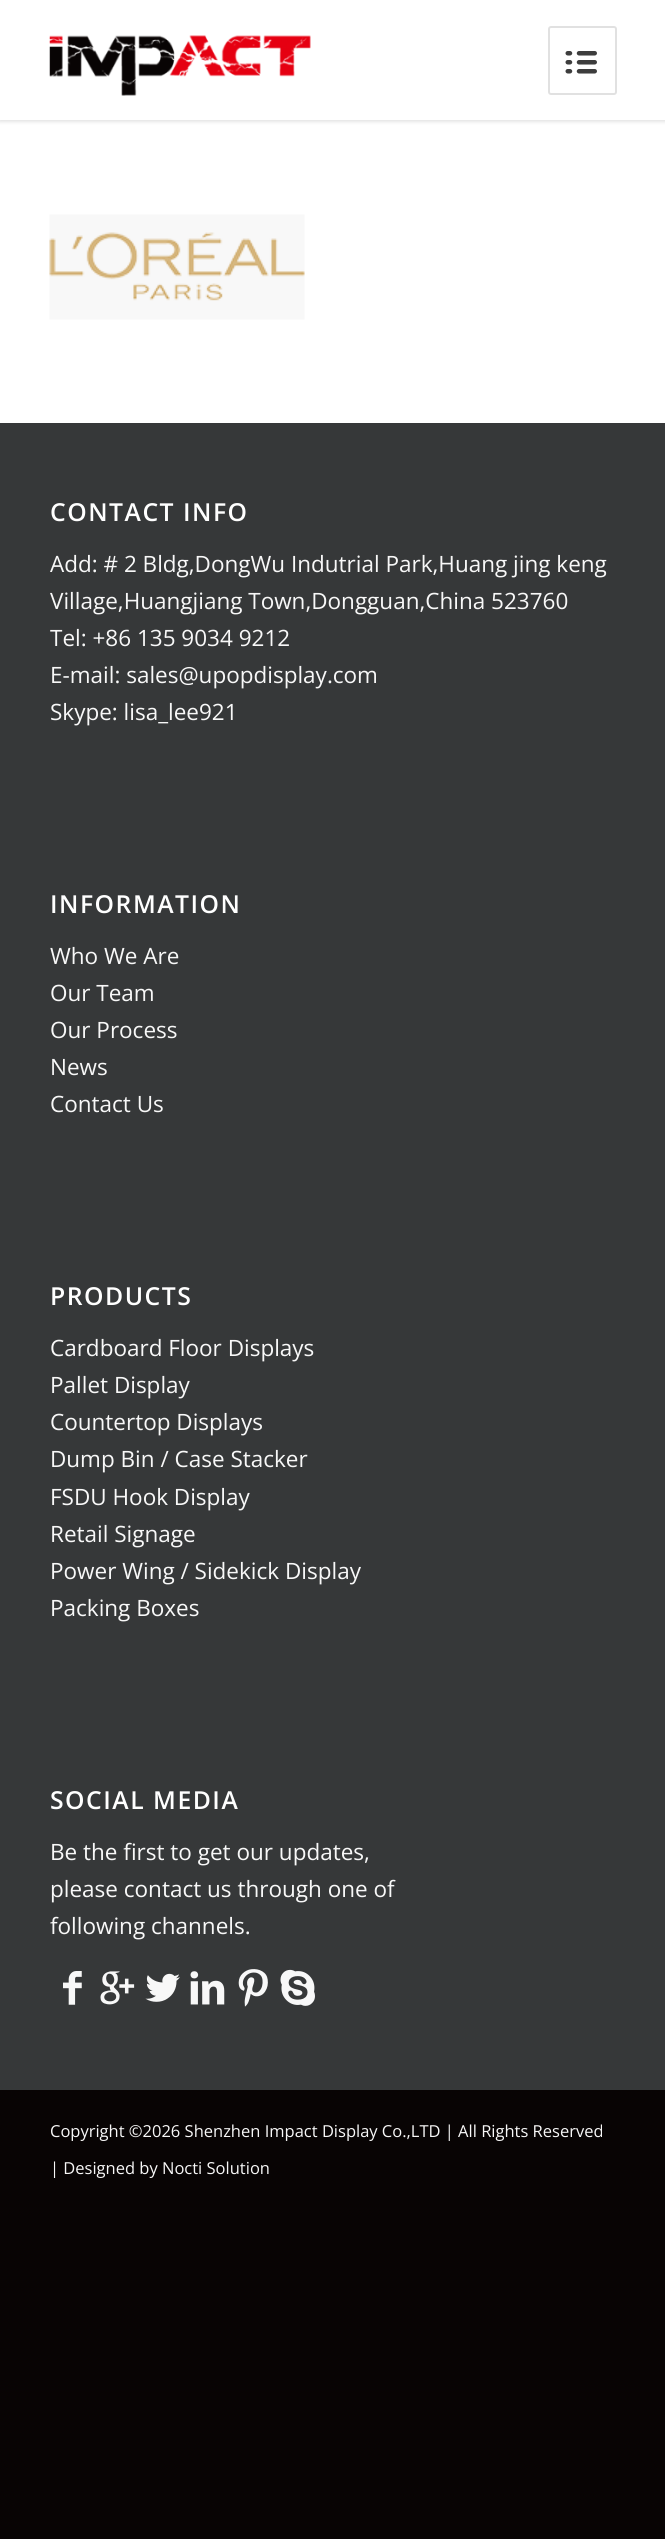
import math
import cairo


def use_color(cr, r, g, b):
  cr.set_source_rgb(r / 255, g / 255, b / 255)

def text(cr, x, y, s, family, size, color, bold=False, italic=False):
  cr.select_font_face(family, cairo.FONT_SLANT_ITALIC if italic else cairo.FONT_SLANT_NORMAL, cairo.FONT_WEIGHT_BOLD if bold else cairo.FONT_WEIGHT_NORMAL)
  cr.set_font_size(size)
  use_color(cr, *color)
  cr.move_to(x, y)
  cr.show_text(s)

def spaced_text(cr, x, y, s, letter, word):
  cr.move_to(x, y)
  for ch in s:
    cr.show_text(ch)
    cr.rel_move_to(letter + word * (ch == ' '), 0)

def box(cr, x, y, w, h, *color):
  use_color(cr, *color)
  cr.rectangle(x, y, w, h)
  cr.fill()

def round_rect(cr, x, y, w, h, r):
  cr.new_sub_path()
  for i, (u, v) in enumerate([(x + w - r, y + h - r), (x + r, y + h - r), (x + r, y + r), (x + w - r, y + r)]):
    cr.arc(u, v, r, i * math.pi / 2, (i + 1) * math.pi / 2)
  cr.close_path()

def shadow(cr, x, y, w, h, r, blur, alpha):
  cr.push_group_with_content(cairo.CONTENT_ALPHA)
  cr.set_operator(cairo.OPERATOR_SOURCE)
  for i in range(15, -16, -2):
    e = blur * i / 6
    if min(w, h) + 2 * e > 0:
      cr.set_source_rgba(0, 0, 0, alpha * math.erfc((i - 1) / 8.5) / 2)
      round_rect(cr, x - e, y - e, w + 2 * e, h + 2 * e, max(0, min(r + e + blur * .6, min(w, h) / 2 + e)))
      cr.fill()
  cr.mask(cr.pop_group())

def picture(cr, path, x, y, w, h):
  cr.save()
  cr.set_source_surface(cairo.ImageSurface.create_from_png(path), x, y)
  cr.rectangle(x, y, w, h)
  cr.fill()
  cr.restore()

def draw(cr):
  use_color(cr, 8, 4, 4)
  cr.paint()
  box(cr, 0, 120, 665, 303, 255, 255, 255)
  use_color(cr, 0, 0, 0)
  shadow(cr, -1, -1, 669, 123, 0, 1.5, 0.1)
  box(cr, 0, 0, 665, 120, 255, 255, 255)
  picture(cr, "img_01.png", 49, 35, 262, 61)
  round_rect(cr, 549, 27, 67, 67, 2)
  use_color(cr, 225, 225, 225)
  cr.stroke()
  picture(cr, "img_02.png", 565, 51, 32, 23)
  picture(cr, "img_03.png", 49, 214, 256, 106)
  box(cr, 0, 423, 665, 1667, 54, 56, 57)
  picture(cr, "img_04.png", 63, 1971, 19, 34)
  picture(cr, "img_05.png", 100, 1971, 35, 34)
  picture(cr, "img_06.png", 145, 1973, 35, 29)
  picture(cr, "img_07.png", 190, 1971, 35, 34)
  picture(cr, "img_08.png", 238, 1969, 30, 38)
  picture(cr, "img_09.png", 280, 1969, 35, 37)
  cr.select_font_face("Open Sans SemiBold")
  cr.set_font_size(24.75)
  use_color(cr, 255, 255, 255)
  spaced_text(cr, 50, 521, "CONTACT INFO", 1.5, 0)
  text(cr, 50, 572, "Add: # 2 Bldg,DongWu Indutrial Park,Huang jing keng", "Open Sans", 22.5, (248, 248, 248))
  text(cr, 50, 609, "Village,Huangjiang Town,Dongguan,China 523760", "Open Sans", 22.5, (248, 248, 248))
  text(cr, 50, 646, "Tel: +86 135 9034 9212", "Open Sans", 22.5, (248, 248, 248))
  text(cr, 50, 683, "E-mail: sales@upopdisplay.com", "Open Sans", 22.5, (248, 248, 248))
  text(cr, 50, 720, "Skype: lisa_lee921", "Open Sans", 22.5, (248, 248, 248))
  cr.select_font_face("Open Sans SemiBold")
  cr.set_font_size(24.75)
  use_color(cr, 255, 255, 255)
  spaced_text(cr, 50, 913, "INFORMATION", 1.5, 0)
  text(cr, 50, 964, "Who We Are", "Open Sans", 22.5, (248, 248, 248))
  text(cr, 50, 1001, "Our Team", "Open Sans", 22.5, (248, 248, 248))
  text(cr, 50, 1038, "Our Process", "Open Sans", 22.5, (248, 248, 248))
  text(cr, 50, 1075, "News", "Open Sans", 22.5, (248, 248, 248))
  text(cr, 50, 1112, "Contact Us", "Open Sans", 22.5, (248, 248, 248))
  cr.select_font_face("Open Sans SemiBold")
  cr.set_font_size(24.75)
  use_color(cr, 255, 255, 255)
  spaced_text(cr, 50, 1305, "PRODUCTS", 1.5, 0)
  text(cr, 50, 1356, "Cardboard Floor Displays", "Open Sans", 22.5, (248, 248, 248))
  text(cr, 50, 1393, "Pallet Display", "Open Sans", 22.5, (248, 248, 248))
  text(cr, 50, 1430, "Countertop Displays", "Open Sans", 22.5, (248, 248, 248))
  text(cr, 50, 1467, "Dump Bin / Case Stacker", "Open Sans", 22.5, (248, 248, 248))
  text(cr, 50, 1505, "FSDU Hook Display", "Open Sans", 22.5, (248, 248, 248))
  text(cr, 50, 1542, "Retail Signage", "Open Sans", 22.5, (248, 248, 248))
  text(cr, 50, 1579, "Power Wing / Sidekick Display", "Open Sans", 22.5, (248, 248, 248))
  text(cr, 50, 1616, "Packing Boxes", "Open Sans", 22.5, (248, 248, 248))
  cr.select_font_face("Open Sans SemiBold")
  cr.set_font_size(24.75)
  use_color(cr, 255, 255, 255)
  spaced_text(cr, 50, 1809, "SOCIAL MEDIA", 1.5, 0)
  text(cr, 50, 1860, "Be the first to get our updates,", "Open Sans", 22.5, (248, 248, 248))
  text(cr, 50, 1897, "please contact us through one of", "Open Sans", 22.5, (248, 248, 248))
  text(cr, 50, 1934, "following channels.", "Open Sans", 22.5, (248, 248, 248))
  text(cr, 50, 2137, "Copyright ©2026 Shenzhen Impact Display Co.,LTD | All Rights Reserved", "Open Sans", 16.5, (248, 248, 248))
  text(cr, 50, 2174, "| Designed by Nocti Solution", "Open Sans", 16.5, (248, 248, 248))


surface = cairo.ImageSurface(cairo.FORMAT_RGB24, 665, 2539)
cr = cairo.Context(surface)
options = cairo.FontOptions()
options.set_hint_metrics(cairo.HINT_METRICS_OFF)
options.set_hint_style(cairo.HINT_STYLE_NONE)
cr.set_font_options(options)
cr.set_miter_limit(4)
draw(cr)
surface.write_to_png("out.png")
